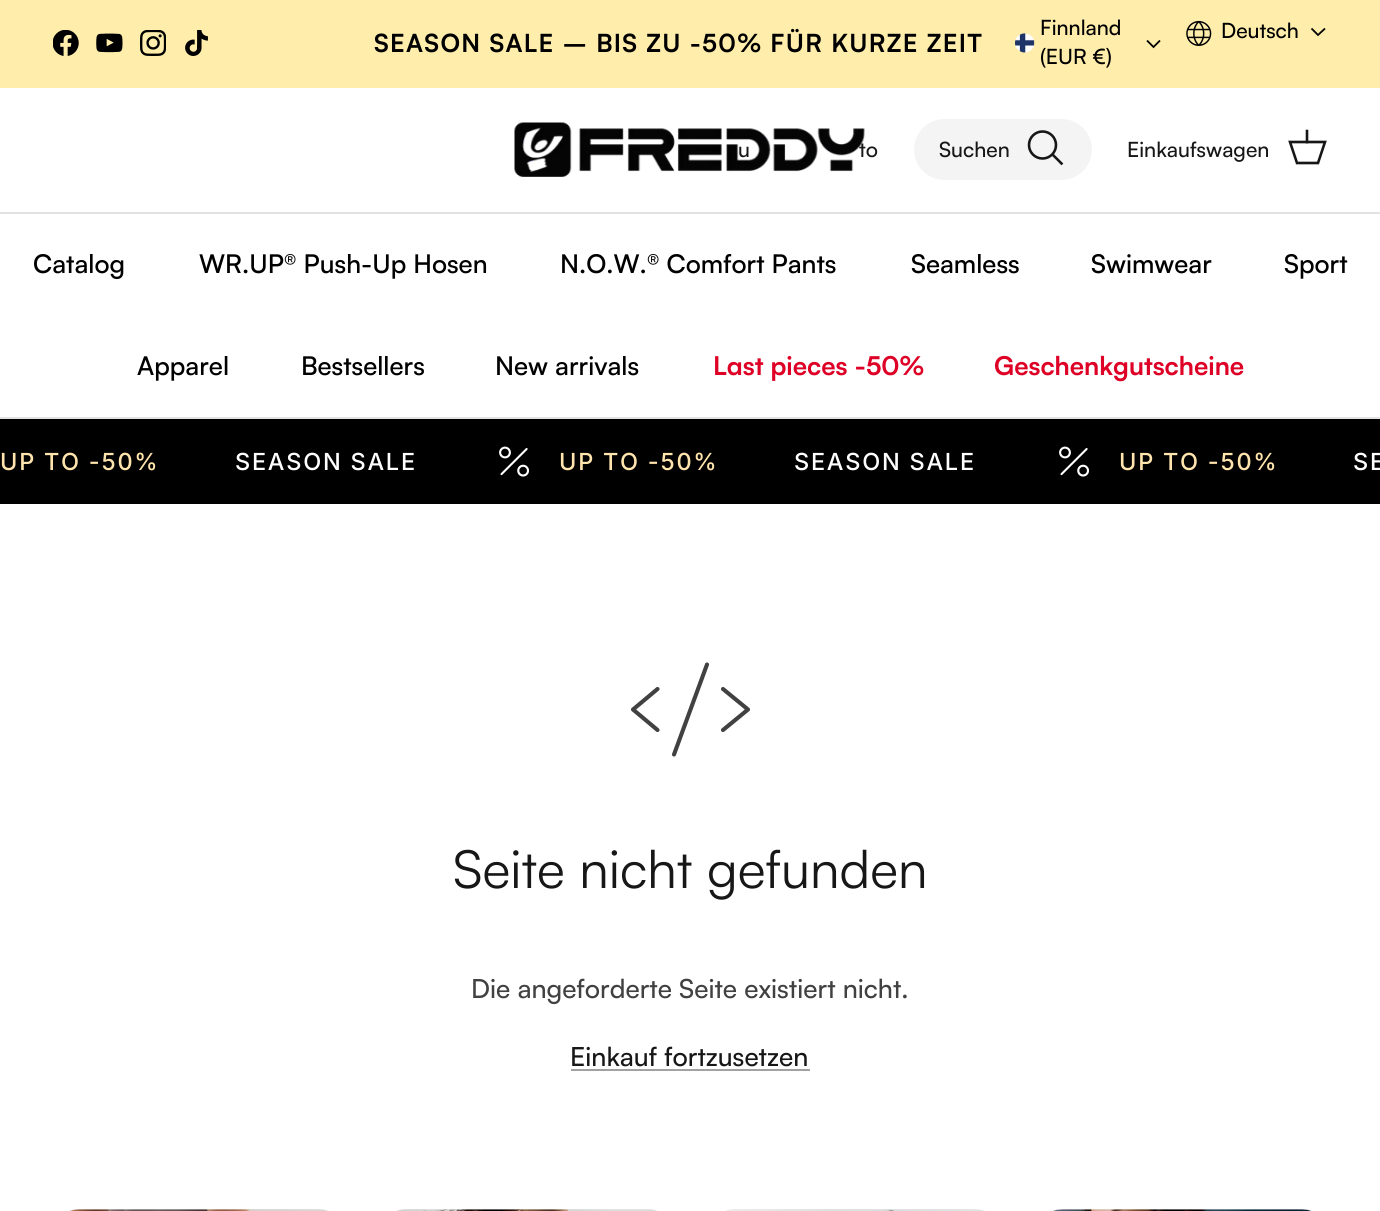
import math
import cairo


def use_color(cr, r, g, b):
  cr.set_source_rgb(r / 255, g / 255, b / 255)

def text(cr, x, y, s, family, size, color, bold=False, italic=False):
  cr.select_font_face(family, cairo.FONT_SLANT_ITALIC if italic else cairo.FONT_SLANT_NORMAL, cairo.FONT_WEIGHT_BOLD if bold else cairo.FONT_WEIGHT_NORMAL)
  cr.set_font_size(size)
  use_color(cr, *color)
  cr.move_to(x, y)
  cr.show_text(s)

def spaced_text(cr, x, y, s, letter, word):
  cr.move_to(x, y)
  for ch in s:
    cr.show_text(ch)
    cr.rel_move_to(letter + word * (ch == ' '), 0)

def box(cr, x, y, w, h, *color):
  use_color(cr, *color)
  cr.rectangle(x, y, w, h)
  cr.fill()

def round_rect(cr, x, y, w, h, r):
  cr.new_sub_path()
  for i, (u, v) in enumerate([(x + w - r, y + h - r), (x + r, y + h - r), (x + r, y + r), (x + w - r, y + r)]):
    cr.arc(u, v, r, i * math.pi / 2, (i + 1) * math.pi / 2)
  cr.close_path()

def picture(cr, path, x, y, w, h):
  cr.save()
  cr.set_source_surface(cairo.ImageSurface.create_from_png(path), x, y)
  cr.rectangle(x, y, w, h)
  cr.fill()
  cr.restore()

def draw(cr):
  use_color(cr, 255, 255, 255)
  cr.paint()
  box(cr, 0, 0, 1380, 88, 255, 237, 172)
  picture(cr, "img_01.png", 53, 30, 26, 26)
  picture(cr, "img_02.png", 96, 33, 27, 20)
  picture(cr, "img_03.png", 140, 30, 26, 26)
  picture(cr, "img_04.png", 185, 30, 23, 26)
  picture(cr, "img_05.png", 1015, 33, 20, 20)
  cr.new_path()
  cr.move_to(1160, 40.5)
  cr.line_to(1153.5, 47)
  cr.line_to(1147, 40.5)
  use_color(cr, 0, 0, 0)
  cr.set_line_width(1.8)
  cr.stroke()
  picture(cr, "img_06.png", 1186, 20, 26, 26)
  cr.new_path()
  cr.move_to(1325, 28.5)
  cr.line_to(1318, 35)
  cr.line_to(1311.5, 28.5)
  cr.stroke()
  box(cr, 0, 212, 1380, 2, 226, 226, 226)
  use_color(cr, 244, 244, 244)
  round_rect(cr, 914, 119, 178, 61, 30.5)
  cr.fill()
  cr.arc(1042.5, 145, 13.5, 0, 2 * math.pi)
  use_color(cr, 23, 23, 23)
  cr.set_line_width(2.6)
  cr.stroke()
  cr.new_path()
  cr.move_to(1053.5, 155.5)
  cr.line_to(1061.5, 163.5)
  cr.set_line_cap(cairo.LINE_CAP_SQUARE)
  cr.stroke()
  cr.new_path()
  cr.move_to(1290, 142)
  cr.line_to(1325, 142)
  cr.line_to(1318, 163)
  cr.line_to(1297, 163)
  cr.close_path()
  cr.set_line_cap(cairo.LINE_CAP_BUTT)
  cr.stroke()
  cr.new_path()
  cr.move_to(1307, 142)
  cr.line_to(1307, 131)
  cr.set_line_cap(cairo.LINE_CAP_SQUARE)
  cr.stroke()
  box(cr, 0, 417, 1380, 2, 226, 226, 226)
  box(cr, 0, 419, 1380, 85, 0, 0, 0)
  picture(cr, "img_08.png", 499, 446, 31, 31)
  picture(cr, "img_08.png", 1059, 446, 31, 31)
  cr.new_path()
  cr.move_to(657.5, 689)
  cr.line_to(633, 709.5)
  cr.line_to(657.5, 730)
  use_color(cr, 65, 65, 65)
  cr.set_line_width(4.1)
  cr.set_line_cap(cairo.LINE_CAP_ROUND)
  cr.set_line_join(cairo.LINE_JOIN_ROUND)
  cr.stroke()
  cr.new_path()
  cr.move_to(723, 689)
  cr.line_to(748, 709.5)
  cr.line_to(723, 730)
  cr.stroke()
  cr.new_path()
  cr.move_to(707, 664.5)
  cr.line_to(674, 754.5)
  cr.stroke()
  box(cr, 571, 1069, 239, 2, 162, 162, 162)
  picture(cr, "img_09.png", 70, 1209, 257, 2)
  gradient = cairo.RadialGradient(0, 0, 0, 0, 0, 1)
  gradient.set_matrix(cairo.Matrix(1 / 454, 0, 0, 1 / 686, -1 * 199 / 454, -1 * 1356 / 686))
  gradient.add_color_stop_rgba(0, 0, 0, 0, 0.16)
  gradient.add_color_stop_rgba(0.7, 0, 0, 0, 0)
  cr.set_source(gradient)
  round_rect(cr, 53, 1209, 292, 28, 26)
  cr.fill()
  picture(cr, "img_10.png", 397, 1209, 259, 2)
  gradient = cairo.RadialGradient(0, 0, 0, 0, 0, 1)
  gradient.set_matrix(cairo.Matrix(1 / 455, 0, 0, 1 / 686, -1 * 527 / 455, -1 * 1356 / 686))
  gradient.add_color_stop_rgba(0, 0, 0, 0, 0.16)
  gradient.add_color_stop_rgba(0.7, 0, 0, 0, 0)
  cr.set_source(gradient)
  round_rect(cr, 380, 1209, 294, 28, 26)
  cr.fill()
  picture(cr, "img_11.png", 778, 1209, 205, 2)
  gradient = cairo.RadialGradient(0, 0, 0, 0, 0, 1)
  gradient.set_matrix(cairo.Matrix(1 / 454, 0, 0, 1 / 619, -1 * 855 / 454, -1 * 1356 / 619))
  gradient.add_color_stop_rgba(0, 0, 0, 0, 0.16)
  gradient.add_color_stop_rgba(0.7, 0, 0, 0, 0)
  cr.set_source(gradient)
  round_rect(cr, 709, 1209, 292, 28, 26)
  cr.fill()
  picture(cr, "img_12.png", 1053, 1209, 258, 2)
  gradient = cairo.RadialGradient(0, 0, 0, 0, 0, 1)
  gradient.set_matrix(cairo.Matrix(1 / 454, 0, 0, 1 / 619, -1 * 1182 / 454, -1 * 1356 / 619))
  gradient.add_color_stop_rgba(0, 0, 0, 0, 0.16)
  gradient.add_color_stop_rgba(0.7, 0, 0, 0, 0)
  cr.set_source(gradient)
  round_rect(cr, 1036, 1209, 292, 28, 26)
  cr.fill()
  cr.select_font_face("Satoshi", cairo.FONT_SLANT_NORMAL, cairo.FONT_WEIGHT_BOLD)
  cr.set_font_size(24.9)
  use_color(cr, 0, 0, 0)
  spaced_text(cr, 374, 52, "SEASON SALE – BIS ZU -50% FÜR KURZE ZEIT", 1.3, 0)
  text(cr, 1040, 35, "Finnland", "Satoshi Medium", 21, (0, 0, 0))
  text(cr, 1040, 64, "(EUR €)", "Satoshi Medium", 21, (0, 0, 0))
  text(cr, 1221, 38, "Deutsch", "Satoshi Medium", 21, (0, 0, 0))
  text(cr, 738, 157, "u", "Satoshi Medium", 21, (23, 23, 23))
  text(cr, 859, 157, "to", "Satoshi Medium", 21, (23, 23, 23))
  picture(cr, "img_07.png", 514, 122, 351, 55)
  text(cr, 939, 157, "Suchen", "Satoshi Medium", 21, (23, 23, 23))
  text(cr, 1127, 157, "Einkaufswagen", "Satoshi Medium", 21, (23, 23, 23))
  text(cr, 33, 273, "Catalog", "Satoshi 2 Medium", 25.75, (0, 0, 0))
  text(cr, 199, 273, "WR.UP® Push-Up Hosen", "Satoshi 2 Medium", 25.75, (0, 0, 0))
  text(cr, 560, 273, "N.O.W.® Comfort Pants", "Satoshi 2 Medium", 25.75, (0, 0, 0))
  text(cr, 911, 273, "Seamless", "Satoshi 2 Medium", 25.75, (0, 0, 0))
  text(cr, 1091, 273, "Swimwear", "Satoshi 2 Medium", 25.75, (0, 0, 0))
  text(cr, 1284, 273, "Sport", "Satoshi 2 Medium", 25.75, (0, 0, 0))
  text(cr, 137, 375, "Apparel", "Satoshi 2 Medium", 25.75, (0, 0, 0))
  text(cr, 301, 375, "Bestsellers", "Satoshi 2 Medium", 25.75, (0, 0, 0))
  text(cr, 495, 375, "New arrivals", "Satoshi 2 Medium", 25.75, (0, 0, 0))
  text(cr, 713, 375, "Last pieces -50%", "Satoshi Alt", 25.75, (222, 0, 37), bold=True)
  text(cr, 994, 375, "Geschenkgutscheine", "Satoshi", 25.75, (222, 0, 37), bold=True)
  cr.select_font_face("Inter Medium")
  cr.set_font_size(23.5)
  use_color(cr, 255, 229, 173)
  spaced_text(cr, 0, 470, "UP TO -50%", 1.75, 0)
  use_color(cr, 255, 255, 255)
  spaced_text(cr, 235, 470, "SEASON SALE", 1.75, 0)
  use_color(cr, 255, 229, 173)
  spaced_text(cr, 559, 470, "UP TO -50%", 1.75, 0)
  use_color(cr, 255, 255, 255)
  spaced_text(cr, 794, 470, "SEASON SALE", 1.75, 0)
  use_color(cr, 255, 229, 173)
  spaced_text(cr, 1119, 470, "UP TO -50%", 1.75, 0)
  use_color(cr, 255, 255, 255)
  spaced_text(cr, 1353, 470, "SE", 1.75, 0)
  text(cr, 453, 888, "Seite nicht gefunden", "Satoshi", 52.5, (23, 23, 23))
  text(cr, 471, 998, "Die angeforderte Seite existiert nicht.", "Satoshi Medium", 26.25, (65, 65, 65))
  text(cr, 570, 1066, "Einkauf fortzusetzen", "Satoshi Medium", 26.25, (23, 23, 23))


surface = cairo.ImageSurface(cairo.FORMAT_RGB24, 1380, 1211)
cr = cairo.Context(surface)
options = cairo.FontOptions()
options.set_hint_metrics(cairo.HINT_METRICS_OFF)
options.set_hint_style(cairo.HINT_STYLE_NONE)
cr.set_font_options(options)
cr.set_miter_limit(4)
draw(cr)
surface.write_to_png("out.png")
